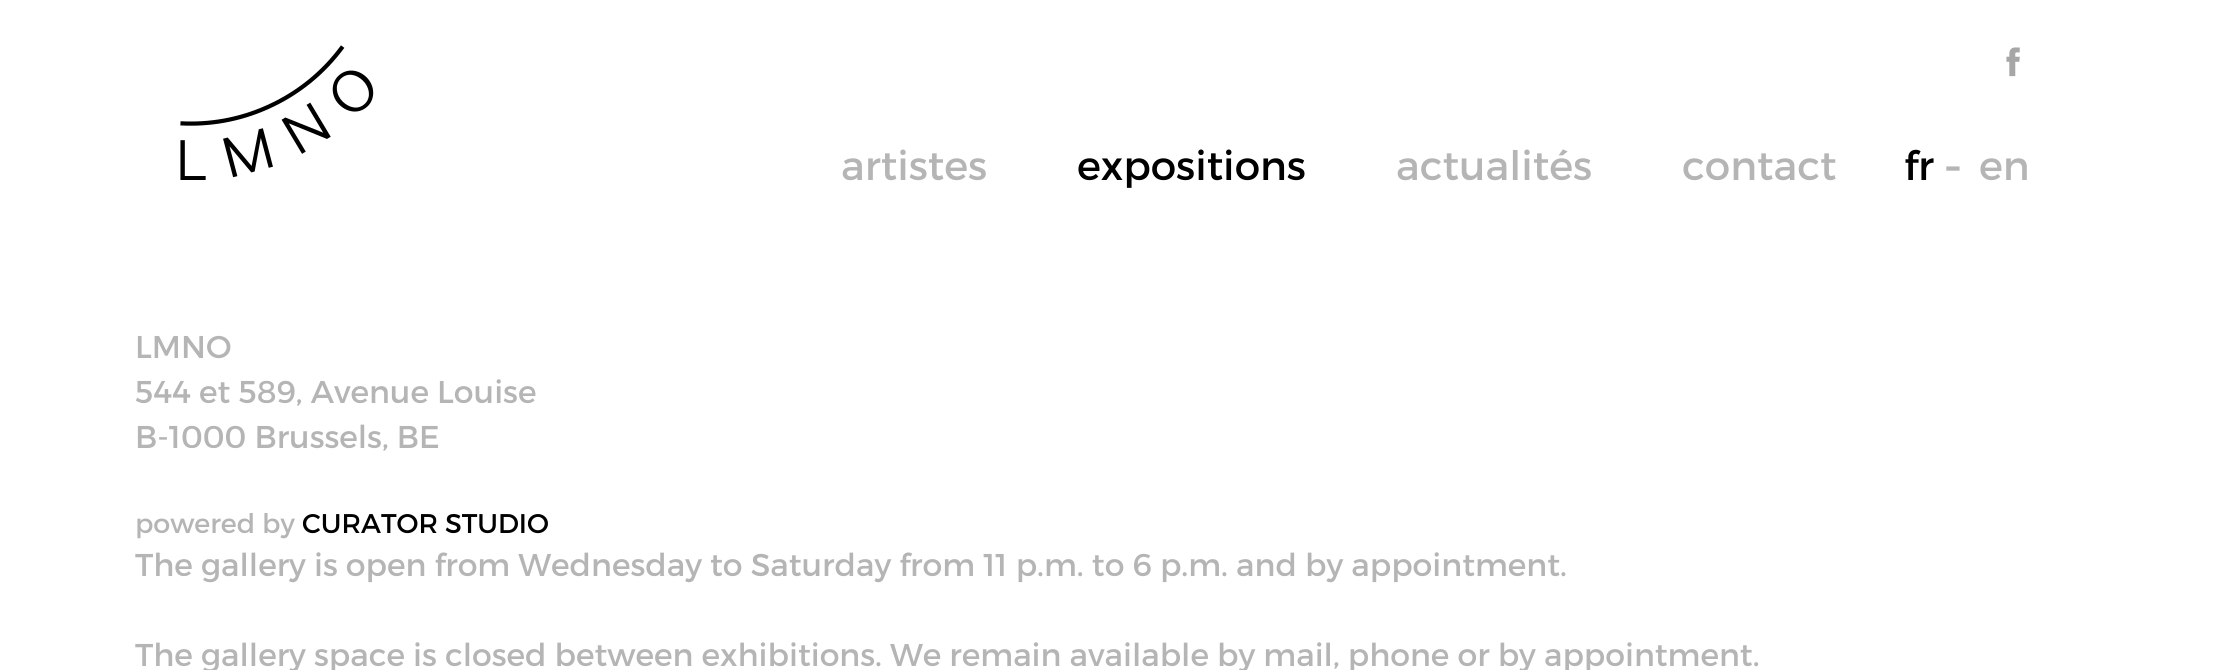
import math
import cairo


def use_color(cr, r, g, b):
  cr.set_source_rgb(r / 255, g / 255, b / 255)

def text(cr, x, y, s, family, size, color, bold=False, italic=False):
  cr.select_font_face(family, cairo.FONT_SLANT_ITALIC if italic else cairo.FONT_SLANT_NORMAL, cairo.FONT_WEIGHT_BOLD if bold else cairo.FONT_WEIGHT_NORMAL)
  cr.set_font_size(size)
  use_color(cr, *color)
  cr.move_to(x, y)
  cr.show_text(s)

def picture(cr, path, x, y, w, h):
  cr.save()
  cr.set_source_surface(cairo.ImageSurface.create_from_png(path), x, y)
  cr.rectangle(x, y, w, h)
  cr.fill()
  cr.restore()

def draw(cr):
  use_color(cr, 255, 255, 255)
  cr.paint()
  picture(cr, "img_01.png", 180, 45, 194, 135)
  picture(cr, "img_02.png", 2006, 47, 14, 30)
  text(cr, 841, 180, "artistes", "Montserrat", 40.5, (181, 181, 181))
  text(cr, 1077, 180, "expositions", "Montserrat", 40.5, (0, 0, 0))
  text(cr, 1396, 180, "actualités", "Montserrat", 40.5, (181, 181, 181))
  text(cr, 1682, 180, "contact", "Montserrat", 40.5, (181, 181, 181))
  text(cr, 1904, 180, "fr", "Montserrat", 40.5, (0, 0, 0))
  text(cr, 1943, 185, "-", "Montserrat", 54, (181, 181, 181))
  text(cr, 1979, 180, "en", "Montserrat", 40.5, (181, 181, 181))
  text(cr, 135, 358, "LMNO", "Montserrat", 31.5, (181, 181, 181))
  text(cr, 135, 403, "544 et 589, Avenue Louise", "Montserrat", 31.5, (181, 181, 181))
  text(cr, 135, 448, "B-1000 Brussels, BE", "Montserrat", 31.5, (181, 181, 181))
  text(cr, 135, 533, "powered by", "Montserrat", 27, (181, 181, 181))
  text(cr, 302, 533, "CURATOR STUDIO", "Montserrat", 27, (0, 0, 0))
  text(cr, 135, 576, "The gallery is open from Wednesday to Saturday from 11 p.m. to 6 p.m. and by appointment.", "Montserrat", 31.5, (181, 181, 181))
  text(cr, 135, 666, "The gallery space is closed between exhibitions. We remain available by mail, phone or by appointment.", "Montserrat", 31.5, (181, 181, 181))


surface = cairo.ImageSurface(cairo.FORMAT_RGB24, 2219, 670)
cr = cairo.Context(surface)
options = cairo.FontOptions()
options.set_hint_metrics(cairo.HINT_METRICS_OFF)
options.set_hint_style(cairo.HINT_STYLE_NONE)
cr.set_font_options(options)
cr.set_miter_limit(4)
draw(cr)
surface.write_to_png("out.png")
